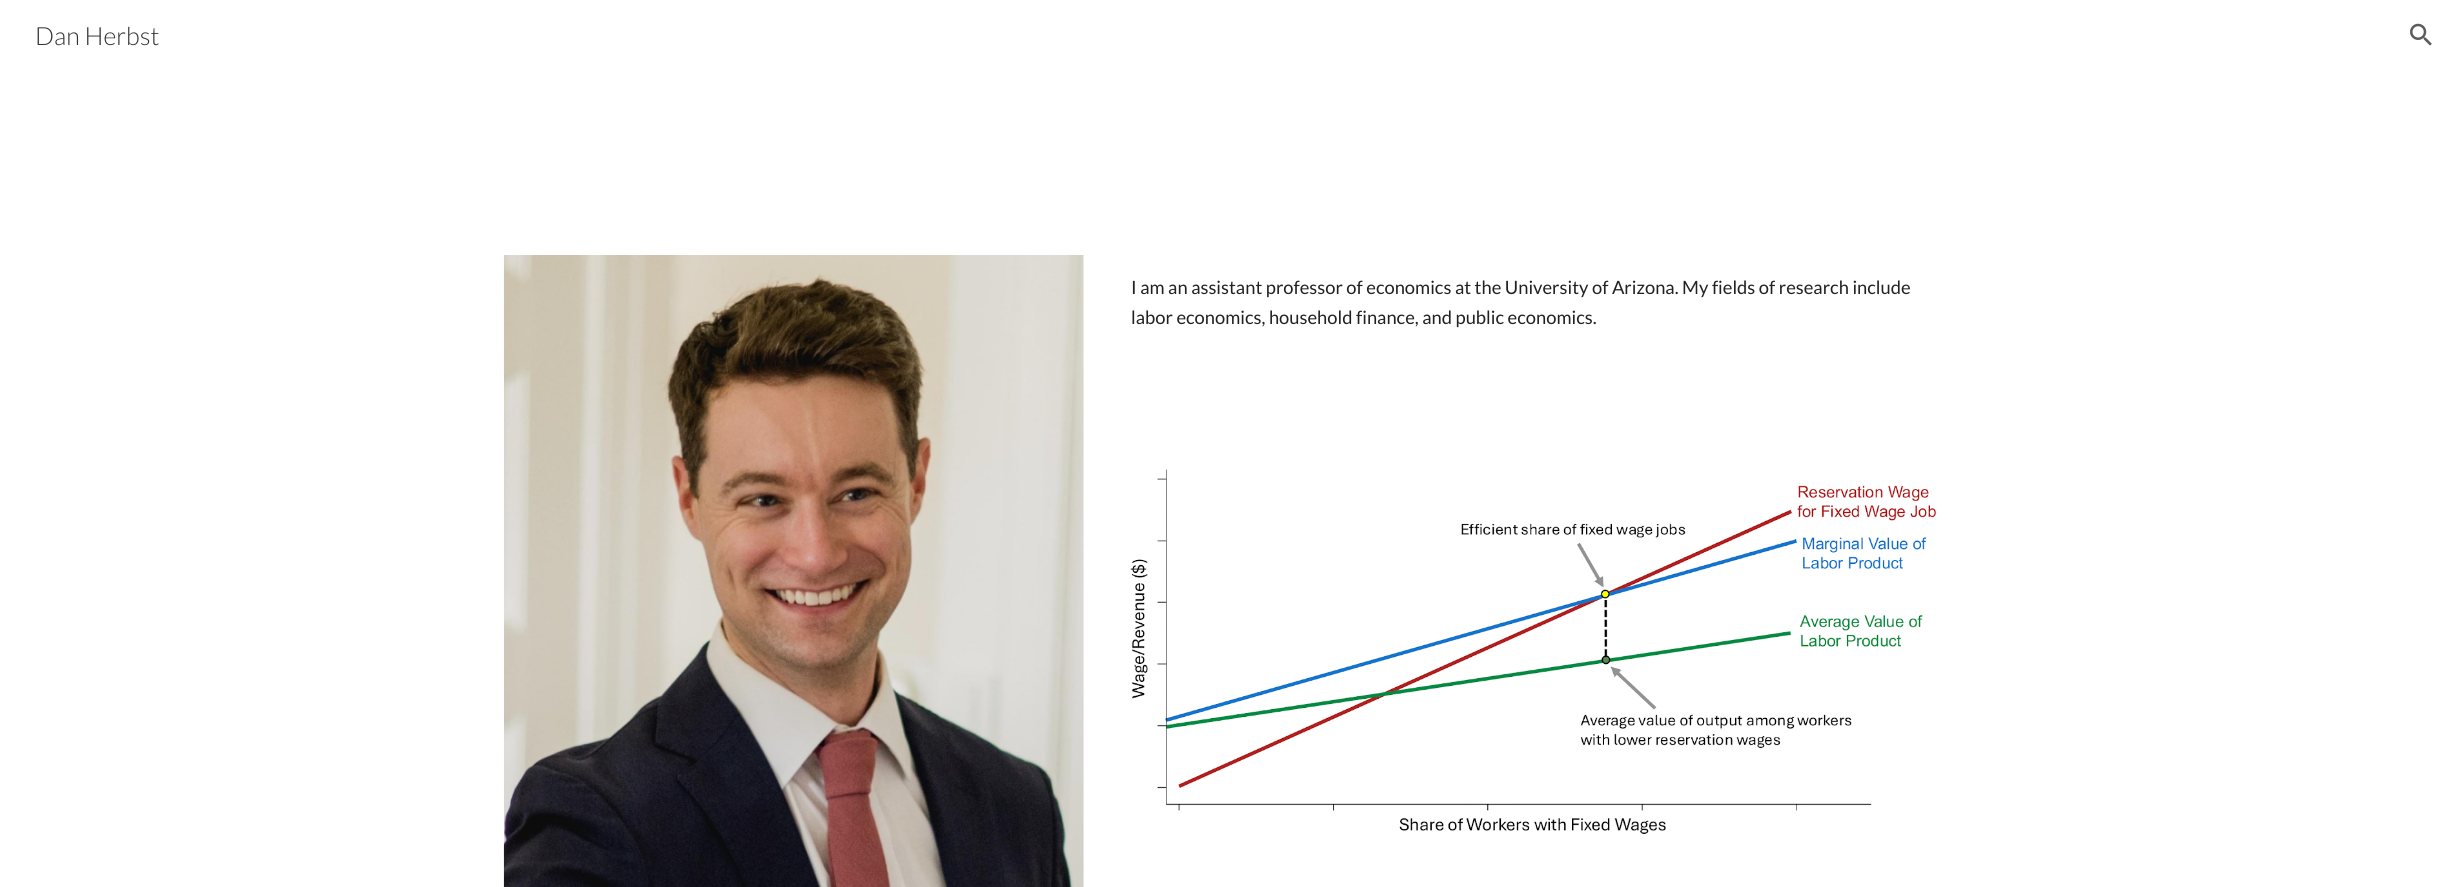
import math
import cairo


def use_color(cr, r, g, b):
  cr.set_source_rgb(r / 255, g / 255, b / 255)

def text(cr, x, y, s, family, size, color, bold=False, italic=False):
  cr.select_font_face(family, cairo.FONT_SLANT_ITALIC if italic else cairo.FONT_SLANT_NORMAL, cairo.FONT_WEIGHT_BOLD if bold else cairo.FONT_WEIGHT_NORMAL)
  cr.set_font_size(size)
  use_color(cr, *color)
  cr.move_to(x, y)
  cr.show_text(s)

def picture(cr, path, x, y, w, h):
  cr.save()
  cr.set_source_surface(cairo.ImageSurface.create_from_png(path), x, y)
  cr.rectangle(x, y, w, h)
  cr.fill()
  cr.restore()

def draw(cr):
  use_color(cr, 255, 255, 255)
  cr.paint()
  picture(cr, "img_01.png", 2410, 23, 22, 23)
  picture(cr, "img_02.png", 503, 255, 581, 632)
  picture(cr, "img_03.png", 1130, 469, 807, 365)
  text(cr, 35, 45, "Dan Herbst", "Lato Light", 25, (51, 51, 51))
  text(cr, 1131, 294, "I am an assistant professor of economics at the University of Arizona. My fields of research include", "Lato", 18.35, (33, 33, 33))
  text(cr, 1131, 324, "labor economics, household finance, and public economics.", "Lato", 18.35, (33, 33, 33))


surface = cairo.ImageSurface(cairo.FORMAT_RGB24, 2451, 887)
cr = cairo.Context(surface)
options = cairo.FontOptions()
options.set_hint_metrics(cairo.HINT_METRICS_OFF)
options.set_hint_style(cairo.HINT_STYLE_NONE)
cr.set_font_options(options)
cr.set_miter_limit(4)
draw(cr)
surface.write_to_png("out.png")
